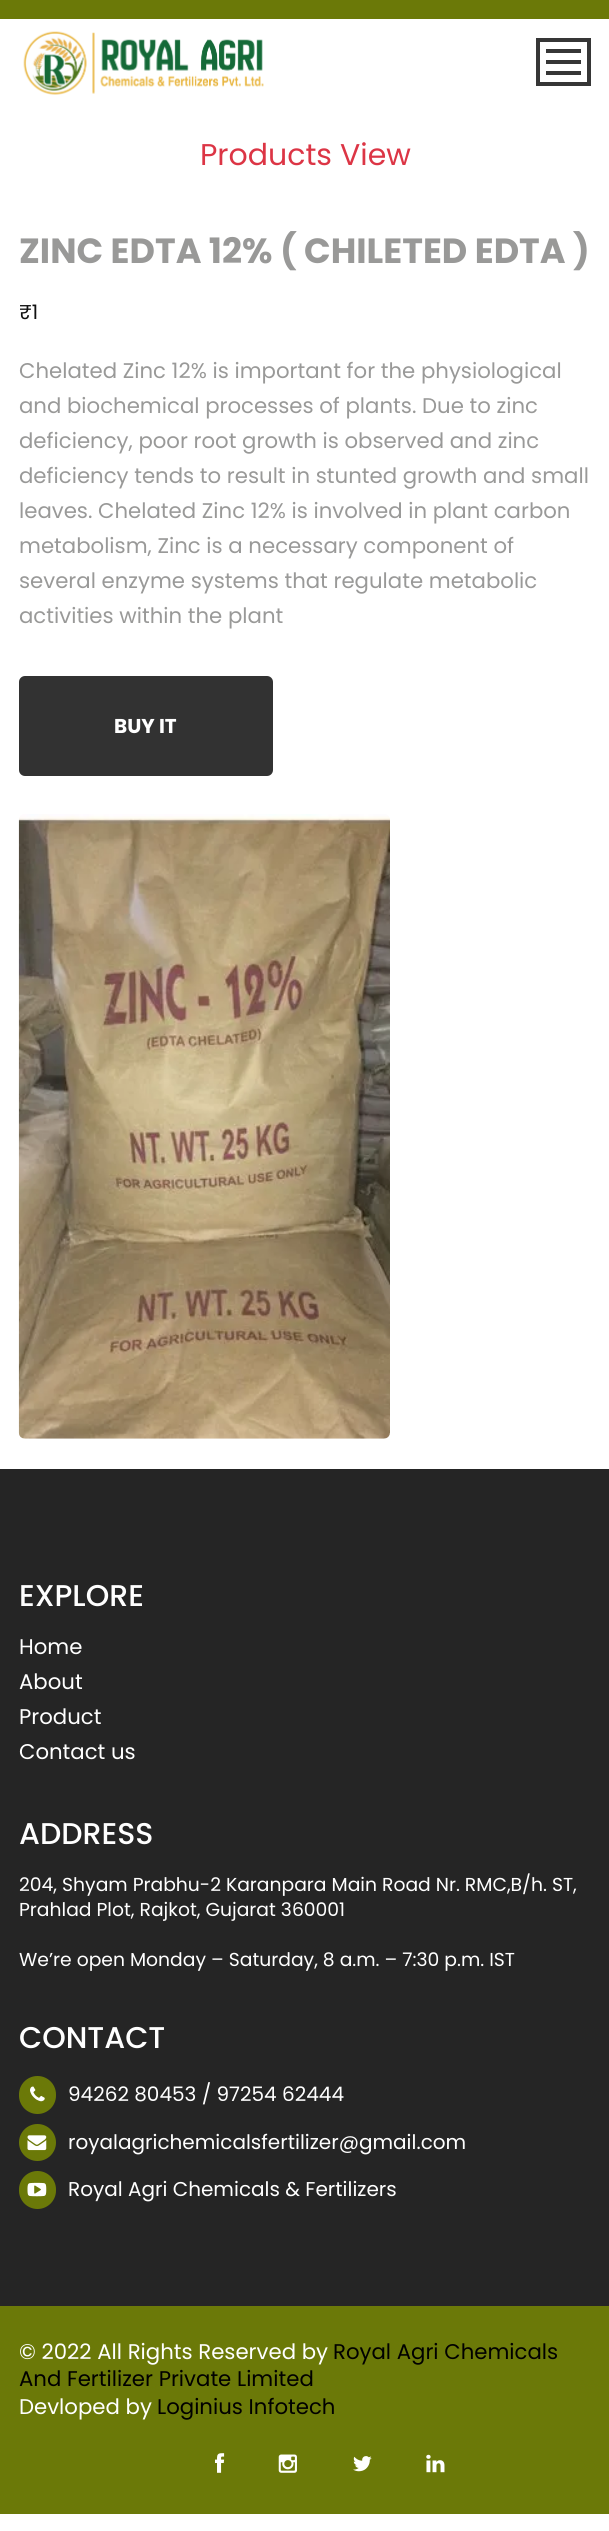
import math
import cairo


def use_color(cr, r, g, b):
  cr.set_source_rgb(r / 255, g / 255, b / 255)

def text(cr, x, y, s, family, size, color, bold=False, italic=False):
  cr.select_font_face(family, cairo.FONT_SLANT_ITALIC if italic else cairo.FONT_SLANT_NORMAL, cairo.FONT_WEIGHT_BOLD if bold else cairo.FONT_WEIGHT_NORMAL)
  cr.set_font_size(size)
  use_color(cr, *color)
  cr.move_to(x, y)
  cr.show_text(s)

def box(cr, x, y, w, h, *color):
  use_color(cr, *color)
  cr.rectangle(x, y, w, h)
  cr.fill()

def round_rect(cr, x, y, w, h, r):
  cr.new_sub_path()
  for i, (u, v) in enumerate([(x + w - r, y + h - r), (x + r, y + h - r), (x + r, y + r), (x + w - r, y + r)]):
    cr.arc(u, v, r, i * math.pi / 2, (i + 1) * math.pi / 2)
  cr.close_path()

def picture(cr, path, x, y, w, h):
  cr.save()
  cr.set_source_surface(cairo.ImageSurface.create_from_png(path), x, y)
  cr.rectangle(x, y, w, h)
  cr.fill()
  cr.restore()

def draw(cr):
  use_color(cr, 255, 255, 255)
  cr.paint()
  box(cr, 0, 0, 609, 19, 107, 121, 8)
  picture(cr, "img_01.png", 23, 31, 241, 64)
  cr.rectangle(538, 40, 51, 44)
  use_color(cr, 54, 54, 54)
  cr.set_line_width(4)
  cr.stroke()
  box(cr, 546, 60, 35, 4, 54, 54, 54)
  box(cr, 546, 49, 35, 4, 54, 54, 54)
  box(cr, 546, 71, 35, 4, 54, 54, 54)
  use_color(cr, 50, 50, 50)
  round_rect(cr, 19, 676, 254, 100, 6)
  cr.fill()
  picture(cr, "img_02.png", 18, 814, 372, 625)
  box(cr, 0, 1469, 609, 837, 37, 37, 37)
  use_color(cr, 107, 121, 8)
  round_rect(cr, 19, 2076, 37, 38, 18.5)
  cr.fill()
  picture(cr, "img_03.png", 30, 2086, 15, 16)
  cr.arc(37.5, 2142.5, 18.5, 0, 2 * math.pi)
  cr.fill()
  picture(cr, "img_04.png", 27, 2135, 20, 16)
  round_rect(cr, 19, 2171, 37, 38, 18.5)
  cr.fill()
  picture(cr, "img_05.png", 27, 2182, 20, 15)
  box(cr, 0, 2306, 609, 208, 107, 121, 8)
  picture(cr, "img_06.png", 215, 2453, 10, 20)
  picture(cr, "img_07.png", 278, 2454, 19, 19)
  picture(cr, "img_08.png", 353, 2456, 19, 16)
  picture(cr, "img_09.png", 426, 2454, 19, 19)
  text(cr, 200, 165, "Products View", "Poppins", 30, (220, 53, 69))
  text(cr, 19, 263, "ZINC EDTA 12% ( CHILETED EDTA )", "Poppins", 35, (153, 153, 152), bold=True)
  text(cr, 19, 319, "₹1", "Poppins", 20, (17, 17, 17))
  text(cr, 19, 378, "Chelated Zinc 12% is important for the physiological", "Poppins", 21.25, (153, 153, 152))
  text(cr, 19, 413, "and biochemical processes of plants. Due to zinc", "Poppins", 21.25, (153, 153, 152))
  text(cr, 19, 448, "deficiency, poor root growth is observed and zinc", "Poppins", 21.25, (153, 153, 152))
  text(cr, 19, 483, "deficiency tends to result in stunted growth and small", "Poppins", 21.25, (153, 153, 152))
  text(cr, 19, 518, "leaves. Chelated Zinc 12% is involved in plant carbon", "Poppins", 21.25, (153, 153, 152))
  text(cr, 19, 553, "metabolism, Zinc is a necessary component of", "Poppins", 21.25, (153, 153, 152))
  text(cr, 19, 588, "several enzyme systems that regulate metabolic", "Poppins", 21.25, (153, 153, 152))
  text(cr, 19, 623, "activities within the plant", "Poppins", 21.25, (153, 153, 152))
  text(cr, 114, 733, "BUY IT", "Poppins", 20, (255, 255, 255), bold=True)
  text(cr, 19, 1606, "EXPLORE", "Poppins Medium", 30, (255, 255, 255))
  text(cr, 19, 1654, "Home", "Poppins", 21.25, (255, 255, 255))
  text(cr, 19, 1689, "About", "Poppins", 21.25, (255, 255, 255))
  text(cr, 19, 1724, "Product", "Poppins", 21.25, (255, 255, 255))
  text(cr, 19, 1759, "Contact us", "Poppins", 21.25, (255, 255, 255))
  text(cr, 19, 1844, "ADDRESS", "Poppins Medium", 30, (255, 255, 255))
  text(cr, 19, 1891, "204, Shyam Prabhu-2 Karanpara Main Road Nr. RMC,B/h. ST,", "Poppins", 18.75, (255, 255, 255))
  text(cr, 19, 1916, "Prahlad Plot, Rajkot, Gujarat 360001", "Poppins", 18.75, (255, 255, 255))
  text(cr, 19, 1966, "We’re open Monday – Saturday, 8 a.m. – 7:30 p.m. IST", "Poppins", 18.75, (255, 255, 255))
  text(cr, 19, 2048, "CONTACT", "Poppins Medium", 30, (255, 255, 255))
  text(cr, 68, 2101, "94262 80453 / 97254 62444", "Poppins", 20, (255, 255, 255))
  text(cr, 68, 2149, "royalagrichemicalsfertilizer@gmail.com", "Poppins", 20, (255, 255, 255))
  text(cr, 68, 2196, "Royal Agri Chemicals & Fertilizers", "Poppins", 20, (255, 255, 255))
  text(cr, 19, 2359, "© 2022 All Rights Reserved by", "Poppins", 21.25, (255, 255, 255))
  text(cr, 333, 2359, "Royal Agri Chemicals", "Poppins", 21.25, (0, 0, 0))
  text(cr, 19, 2386, "And Fertilizer Private Limited", "Poppins", 21.25, (0, 0, 0))
  text(cr, 19, 2414, "Devloped by", "Poppins", 21.25, (255, 255, 255))
  text(cr, 157, 2414, "Loginius Infotech", "Poppins", 21.25, (0, 0, 0))


surface = cairo.ImageSurface(cairo.FORMAT_RGB24, 609, 2531)
cr = cairo.Context(surface)
options = cairo.FontOptions()
options.set_hint_metrics(cairo.HINT_METRICS_OFF)
options.set_hint_style(cairo.HINT_STYLE_NONE)
cr.set_font_options(options)
cr.set_miter_limit(4)
draw(cr)
surface.write_to_png("out.png")
